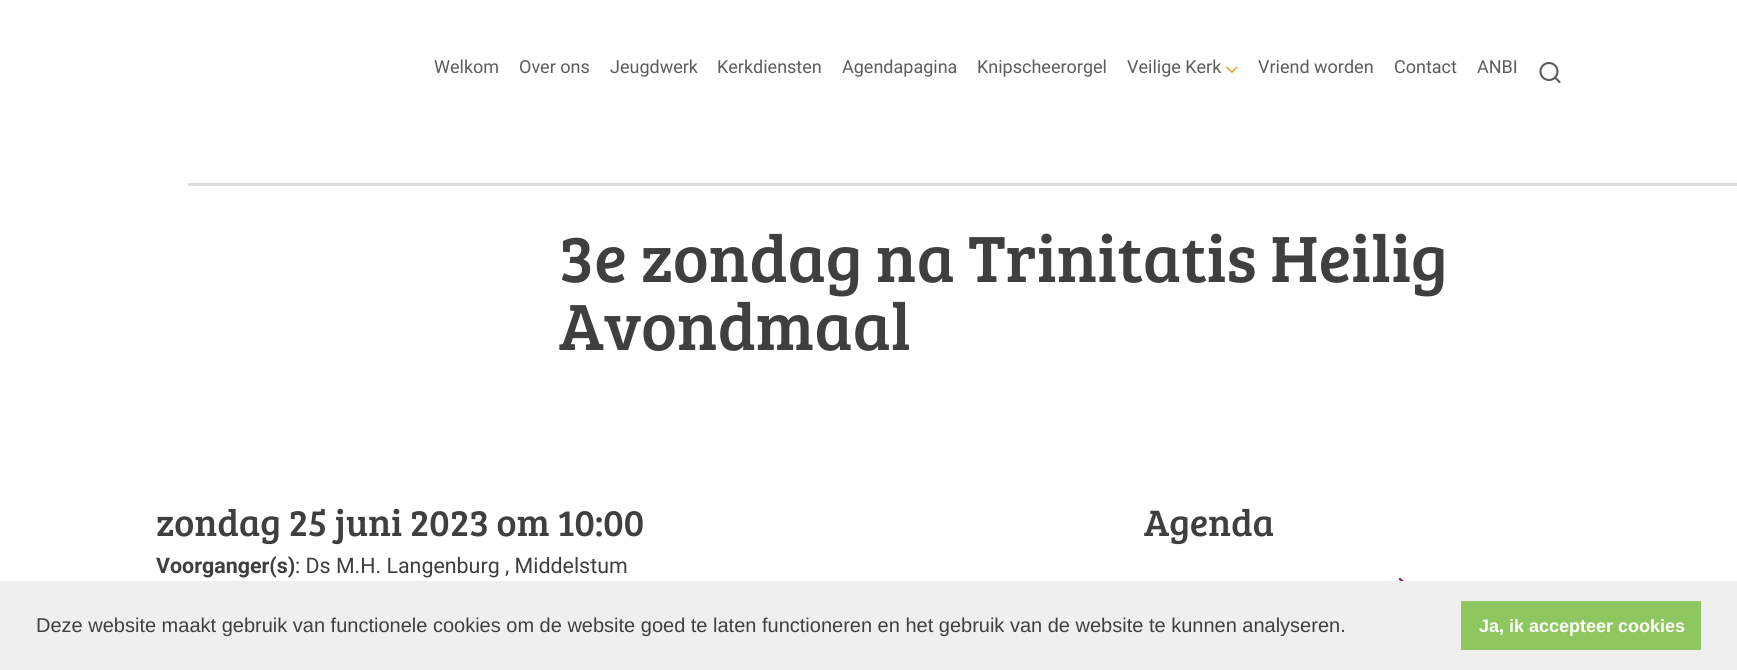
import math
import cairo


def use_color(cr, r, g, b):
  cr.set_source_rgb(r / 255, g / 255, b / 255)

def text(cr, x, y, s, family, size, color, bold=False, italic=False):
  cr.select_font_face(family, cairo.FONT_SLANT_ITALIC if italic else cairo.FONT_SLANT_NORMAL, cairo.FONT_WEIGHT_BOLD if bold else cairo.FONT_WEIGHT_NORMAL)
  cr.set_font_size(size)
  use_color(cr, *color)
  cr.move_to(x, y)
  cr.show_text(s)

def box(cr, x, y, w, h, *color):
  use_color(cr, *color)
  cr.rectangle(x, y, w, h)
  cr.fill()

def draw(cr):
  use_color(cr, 255, 255, 255)
  cr.paint()
  use_color(cr, 251, 144, 38)
  cr.new_path()
  cr.move_to(1237.5, 67.5)
  cr.line_to(1232, 73)
  cr.line_to(1231, 72)
  cr.line_to(1236.5, 66.5)
  cr.close_path()
  cr.fill()
  cr.new_path()
  cr.move_to(1233, 72)
  cr.line_to(1232, 73)
  cr.line_to(1226, 67.5)
  cr.line_to(1227, 66.5)
  cr.close_path()
  cr.fill()
  cr.arc(1549, 71.5, 8.5, 0, 2 * math.pi)
  use_color(cr, 92, 92, 92)
  cr.set_line_width(2.1)
  cr.stroke()
  cr.new_path()
  cr.move_to(1559.5, 82)
  cr.line_to(1555, 77.5)
  cr.set_line_cap(cairo.LINE_CAP_ROUND)
  cr.set_line_join(cairo.LINE_JOIN_ROUND)
  cr.stroke()
  box(cr, 188, 183, 1549, 3, 221, 221, 221)
  cr.new_path()
  cr.move_to(1400, 594)
  cr.line_to(1407.5, 586)
  cr.line_to(1400, 579)
  use_color(cr, 141, 49, 117)
  cr.set_line_width(2.5)
  cr.stroke()
  box(cr, 0, 581, 1737, 89, 239, 239, 239)
  box(cr, 1461, 601, 240, 49, 142, 199, 96)
  text(cr, 434, 73, "Welkom", "Roboto", 18, (92, 92, 92))
  text(cr, 519, 73, "Over ons", "Roboto", 18, (92, 92, 92))
  text(cr, 610, 73, "Jeugdwerk", "Roboto", 18, (92, 92, 92))
  text(cr, 717, 73, "Kerkdiensten", "Roboto", 18, (92, 92, 92))
  text(cr, 842, 73, "Agendapagina", "Roboto", 18, (92, 92, 92))
  text(cr, 977, 73, "Knipscheerorgel", "Roboto", 18, (92, 92, 92))
  text(cr, 1127, 73, "Veilige Kerk", "Roboto", 18, (92, 92, 92))
  text(cr, 1258, 73, "Vriend worden", "Roboto", 18, (92, 92, 92))
  text(cr, 1394, 73, "Contact", "Roboto", 18, (92, 92, 92))
  text(cr, 1477, 73, "ANBI", "Roboto", 18, (92, 92, 92))
  text(cr, 559, 282, "3e zondag na Trinitatis Heilig", "Bree Serif", 67.5, (63, 63, 63))
  text(cr, 559, 350, "Avondmaal", "Bree Serif", 67.5, (63, 63, 63))
  text(cr, 156, 536, "zondag 25 juni 2023 om 10:00", "Bree Serif", 38, (63, 63, 63))
  text(cr, 156, 573, "Voorganger(s)", "Roboto", 21.4, (63, 63, 63), bold=True)
  text(cr, 295, 573, ": Ds M.H. Langenburg , Middelstum", "Roboto", 21.4, (63, 63, 63))
  text(cr, 1144, 536, "Agenda", "Bree Serif", 38, (63, 63, 63))
  text(cr, 36, 632, "Deze website maakt gebruik van functionele cookies om de website goed te laten functioneren en het gebruik van de website te kunnen analyseren.", "Liberation Sans", 20, (63, 63, 63))
  text(cr, 1479, 632, "Ja, ik accepteer cookies", "Liberation Sans", 18, (255, 255, 255), bold=True)


surface = cairo.ImageSurface(cairo.FORMAT_RGB24, 1737, 670)
cr = cairo.Context(surface)
options = cairo.FontOptions()
options.set_hint_metrics(cairo.HINT_METRICS_OFF)
options.set_hint_style(cairo.HINT_STYLE_NONE)
cr.set_font_options(options)
cr.set_miter_limit(4)
draw(cr)
surface.write_to_png("out.png")
